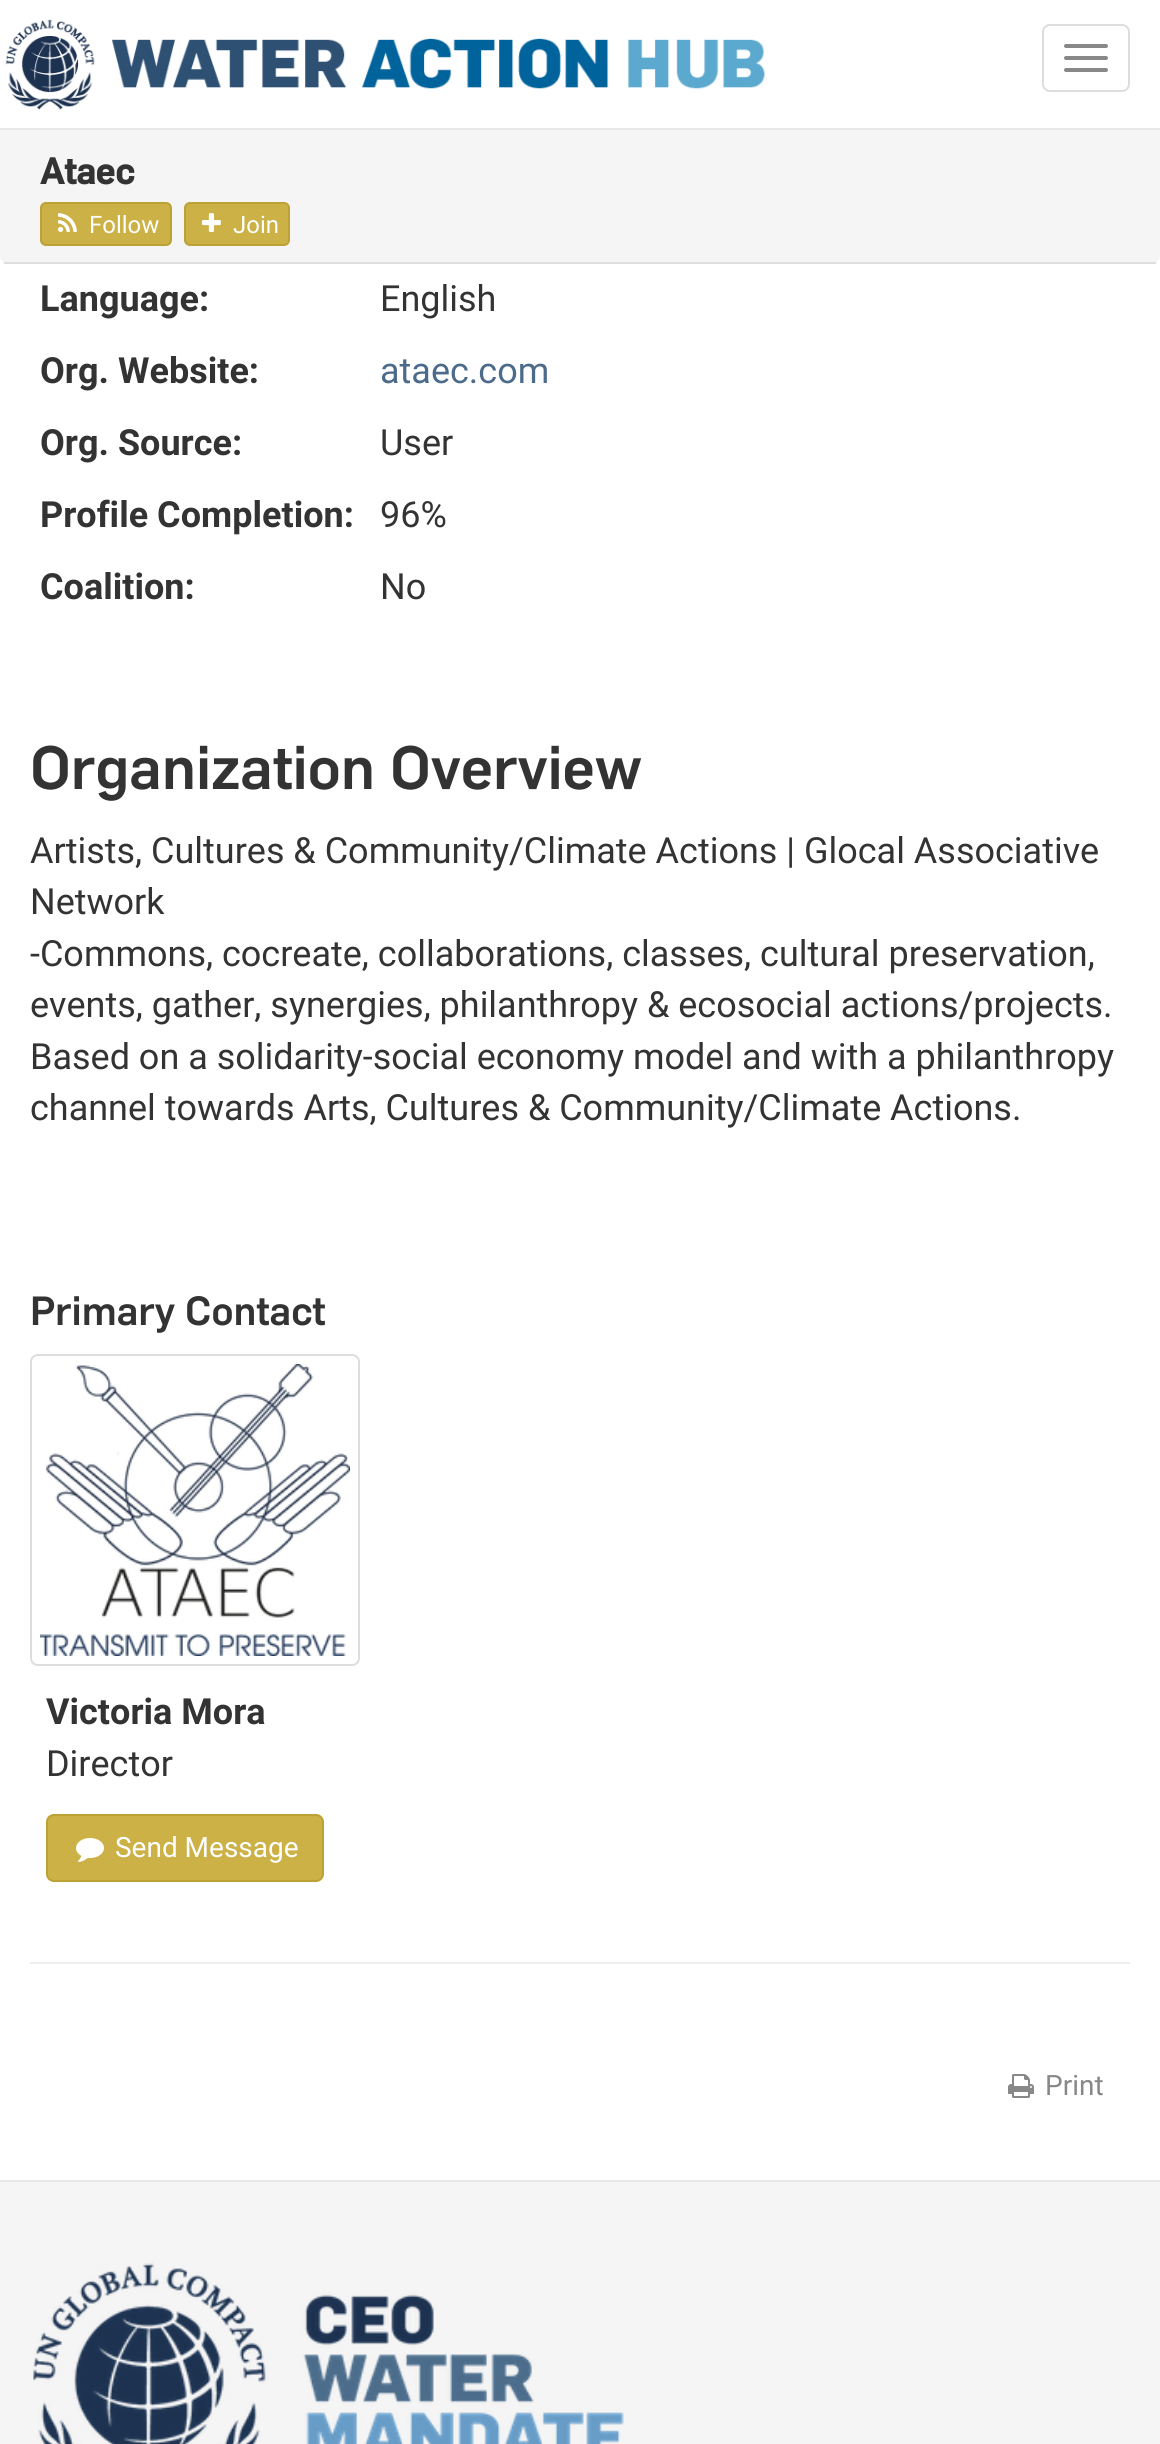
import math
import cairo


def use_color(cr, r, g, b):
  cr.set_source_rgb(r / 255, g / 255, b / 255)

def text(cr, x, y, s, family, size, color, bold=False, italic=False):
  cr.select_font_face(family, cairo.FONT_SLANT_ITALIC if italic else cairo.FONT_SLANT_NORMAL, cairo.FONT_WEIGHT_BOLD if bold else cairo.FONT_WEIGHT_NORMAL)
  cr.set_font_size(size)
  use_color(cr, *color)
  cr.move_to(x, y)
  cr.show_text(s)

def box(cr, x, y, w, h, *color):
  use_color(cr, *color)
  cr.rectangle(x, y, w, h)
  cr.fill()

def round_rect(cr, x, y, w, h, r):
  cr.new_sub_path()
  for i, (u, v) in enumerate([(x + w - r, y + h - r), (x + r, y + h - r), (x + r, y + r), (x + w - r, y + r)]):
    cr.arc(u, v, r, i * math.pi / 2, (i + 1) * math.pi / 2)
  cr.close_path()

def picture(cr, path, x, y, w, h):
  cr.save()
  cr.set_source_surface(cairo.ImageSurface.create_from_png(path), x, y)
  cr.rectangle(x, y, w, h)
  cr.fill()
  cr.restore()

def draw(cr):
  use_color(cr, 255, 255, 255)
  cr.paint()
  use_color(cr, 245, 245, 245)
  cr.new_path()
  cr.move_to(0, 128)
  cr.line_to(1160, 128)
  cr.line_to(1160, 256)
  cr.curve_to(1160, 260.5, 1156.5, 264, 1152, 264)
  cr.line_to(8, 264)
  cr.curve_to(3.5, 264, 0, 260.5, 0, 256)
  cr.close_path()
  cr.fill()
  box(cr, 0, 128, 1160, 2, 231, 231, 231)
  picture(cr, "img_01.png", 5, 19, 761, 91)
  round_rect(cr, 1043, 25, 86, 66, 7)
  use_color(cr, 221, 221, 221)
  cr.stroke()
  use_color(cr, 136, 136, 136)
  round_rect(cr, 1064, 44, 44, 4, 2)
  cr.fill()
  round_rect(cr, 1064, 56, 44, 4, 2)
  cr.fill()
  round_rect(cr, 1064, 68, 44, 4, 2)
  cr.fill()
  box(cr, 4, 262, 1152, 2, 221, 221, 221)
  use_color(cr, 204, 177, 70)
  round_rect(cr, 41, 203, 130, 42, 5)
  cr.fill_preserve()
  use_color(cr, 188, 161, 52)
  cr.stroke()
  picture(cr, "img_02.png", 58, 213, 19, 19)
  use_color(cr, 204, 177, 70)
  round_rect(cr, 185, 203, 104, 42, 5)
  cr.fill_preserve()
  use_color(cr, 188, 161, 52)
  cr.stroke()
  picture(cr, "img_03.png", 202, 213, 19, 19)
  round_rect(cr, 31, 1355, 328, 310, 7)
  use_color(cr, 221, 221, 221)
  cr.stroke()
  picture(cr, "img_04.png", 40, 1364, 310, 292)
  use_color(cr, 204, 177, 70)
  round_rect(cr, 47, 1815, 276, 66, 7)
  cr.fill_preserve()
  use_color(cr, 188, 161, 52)
  cr.stroke()
  picture(cr, "img_05.png", 76, 1838, 28, 24)
  box(cr, 30, 1962, 1100, 2, 238, 238, 238)
  picture(cr, "img_06.png", 1008, 2074, 26, 24)
  box(cr, 0, 2182, 1160, 262, 245, 245, 245)
  box(cr, 0, 2180, 1160, 2, 231, 231, 231)
  picture(cr, "img_07.png", 33, 2263, 591, 181)
  text(cr, 40, 184, "Ataec", "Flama", 36, (51, 51, 51), bold=True)
  text(cr, 89, 233, "Follow", "Roboto", 24, (255, 255, 255))
  text(cr, 233, 233, "Join", "Roboto", 24, (255, 255, 255))
  text(cr, 40, 311, "Language:", "Roboto", 36, (51, 51, 51), bold=True)
  text(cr, 380, 311, "English", "Roboto", 36, (51, 51, 51))
  text(cr, 40, 383, "Org. Website:", "Roboto", 36, (51, 51, 51), bold=True)
  text(cr, 380, 383, "ataec.com", "Roboto", 36, (76, 107, 139))
  text(cr, 40, 455, "Org. Source:", "Roboto", 36, (51, 51, 51), bold=True)
  text(cr, 380, 455, "User", "Roboto", 36, (51, 51, 51))
  text(cr, 40, 527, "Profile Completion:", "Roboto", 36, (51, 51, 51), bold=True)
  text(cr, 380, 527, "96%", "Roboto", 36, (51, 51, 51))
  text(cr, 40, 599, "Coalition:", "Roboto", 36, (51, 51, 51), bold=True)
  text(cr, 380, 599, "No", "Roboto", 36, (51, 51, 51))
  text(cr, 30, 789, "Organization Overview", "Flama Medium", 60, (51, 51, 51))
  text(cr, 30, 863, "Artists, Cultures & Community/Climate Actions | Glocal Associative", "Roboto", 36, (51, 51, 51))
  text(cr, 30, 914, "Network", "Roboto", 36, (51, 51, 51))
  text(cr, 30, 966, "-Commons, cocreate, collaborations, classes, cultural preservation,", "Roboto", 36, (51, 51, 51))
  text(cr, 30, 1017, "events, gather, synergies, philanthropy & ecosocial actions/projects.", "Roboto", 36, (51, 51, 51))
  text(cr, 30, 1069, "Based on a solidarity-social economy model and with a philanthropy", "Roboto", 36, (51, 51, 51))
  text(cr, 30, 1120, "channel towards Arts, Cultures & Community/Climate Actions.", "Roboto", 36, (51, 51, 51))
  text(cr, 30, 1325, "Primary Contact", "Flama Medium", 40, (51, 51, 51))
  text(cr, 46, 1724, "Victoria Mora", "Roboto", 36, (51, 51, 51), bold=True)
  text(cr, 46, 1776, "Director", "Roboto", 36, (51, 51, 51))
  text(cr, 115, 1857, "Send Message", "Roboto", 28, (255, 255, 255))
  text(cr, 1045, 2095, "Print", "Roboto", 28, (136, 136, 136))


surface = cairo.ImageSurface(cairo.FORMAT_RGB24, 1160, 2444)
cr = cairo.Context(surface)
options = cairo.FontOptions()
options.set_hint_metrics(cairo.HINT_METRICS_OFF)
options.set_hint_style(cairo.HINT_STYLE_NONE)
cr.set_font_options(options)
cr.set_miter_limit(4)
draw(cr)
surface.write_to_png("out.png")
